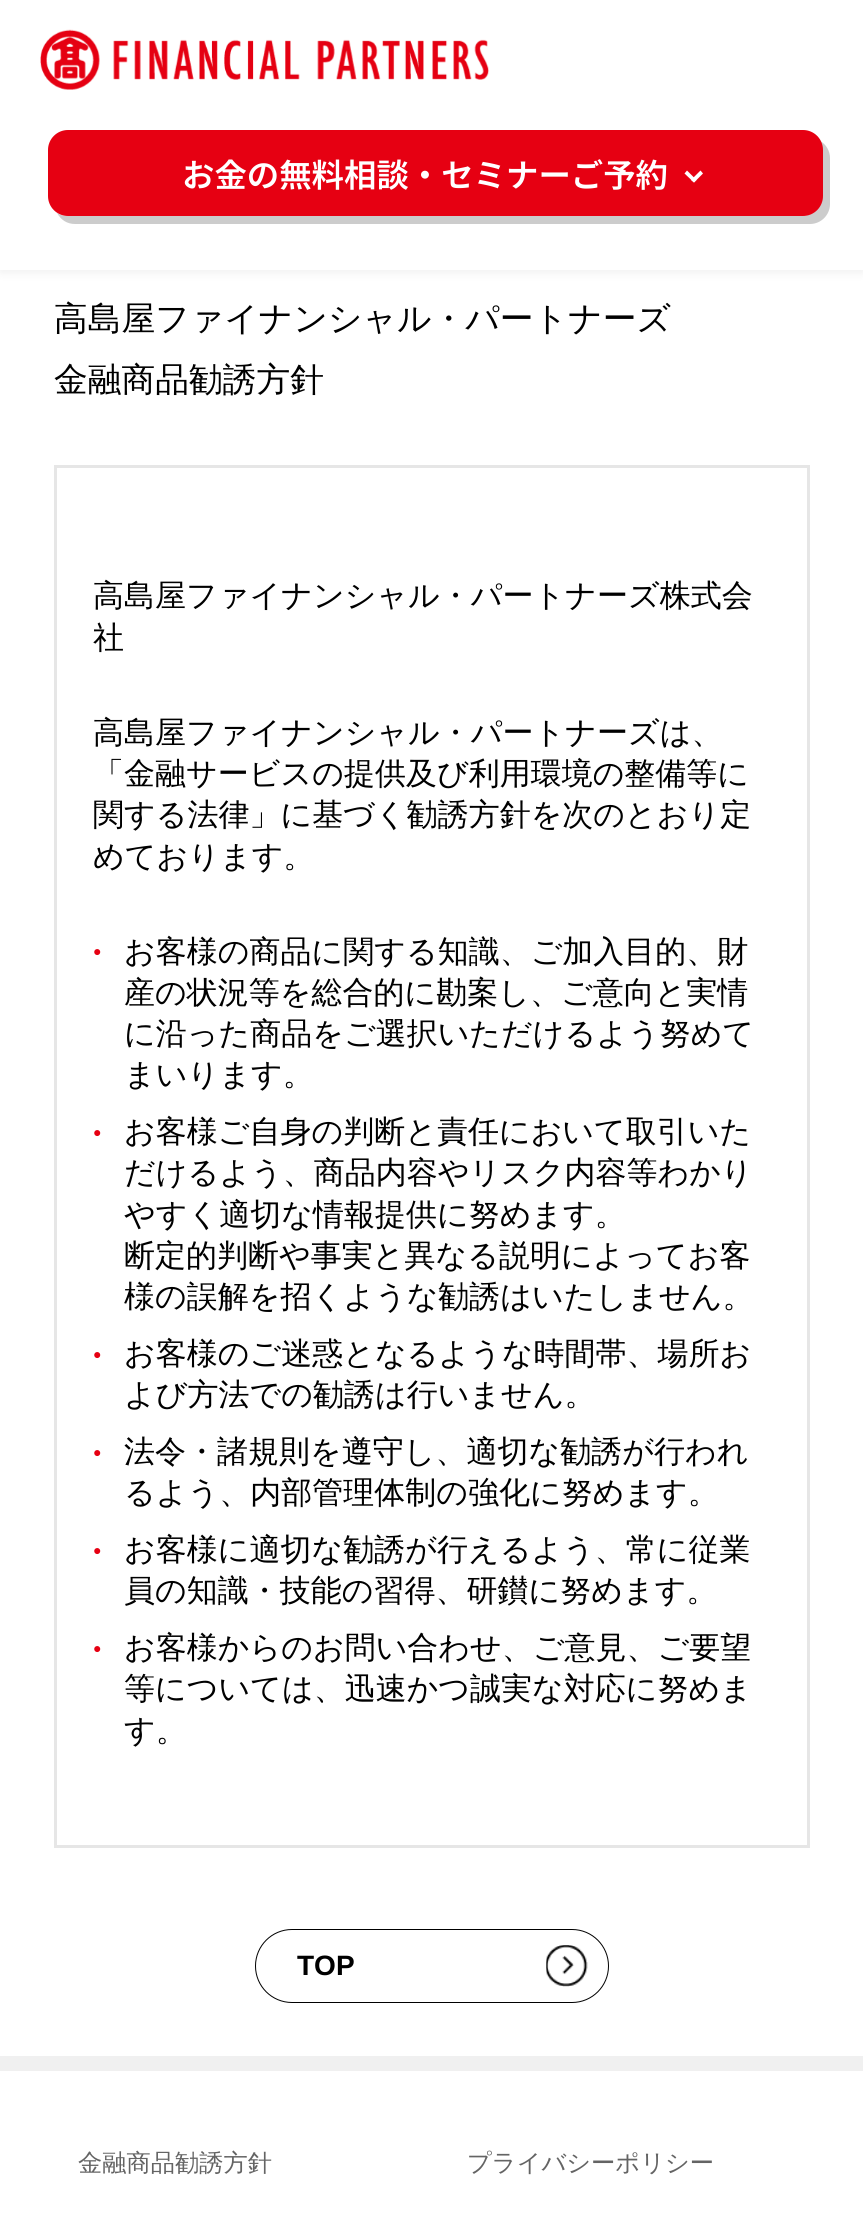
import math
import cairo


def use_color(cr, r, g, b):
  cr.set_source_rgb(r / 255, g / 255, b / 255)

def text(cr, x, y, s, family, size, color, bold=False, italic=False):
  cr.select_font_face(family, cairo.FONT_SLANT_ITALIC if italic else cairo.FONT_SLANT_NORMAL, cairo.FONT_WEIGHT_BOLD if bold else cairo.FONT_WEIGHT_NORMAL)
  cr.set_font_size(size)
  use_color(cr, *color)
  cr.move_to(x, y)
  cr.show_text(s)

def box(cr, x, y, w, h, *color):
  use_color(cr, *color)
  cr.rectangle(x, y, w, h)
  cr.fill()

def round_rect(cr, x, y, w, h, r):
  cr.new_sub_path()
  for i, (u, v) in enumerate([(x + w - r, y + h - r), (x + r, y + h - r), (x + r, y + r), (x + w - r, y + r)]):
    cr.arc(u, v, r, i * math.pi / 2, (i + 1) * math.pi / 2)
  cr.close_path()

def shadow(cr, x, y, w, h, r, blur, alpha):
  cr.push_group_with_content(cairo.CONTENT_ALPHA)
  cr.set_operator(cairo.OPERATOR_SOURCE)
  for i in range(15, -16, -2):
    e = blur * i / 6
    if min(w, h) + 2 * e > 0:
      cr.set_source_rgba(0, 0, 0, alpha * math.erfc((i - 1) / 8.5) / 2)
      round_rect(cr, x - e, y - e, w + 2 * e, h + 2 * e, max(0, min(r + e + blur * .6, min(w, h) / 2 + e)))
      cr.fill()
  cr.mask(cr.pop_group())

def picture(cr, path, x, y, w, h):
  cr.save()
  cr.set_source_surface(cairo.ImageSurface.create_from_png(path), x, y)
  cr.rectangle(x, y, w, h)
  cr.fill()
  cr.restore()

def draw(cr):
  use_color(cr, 255, 255, 255)
  cr.paint()
  use_color(cr, 0, 0, 0)
  shadow(cr, 0, 3, 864, 270, 0, 5, 0.06)
  box(cr, 0, 0, 863, 270, 255, 255, 255)
  picture(cr, "img_01.png", 40, 29, 449, 61)
  use_color(cr, 204, 204, 204)
  cr.new_path()
  cr.move_to(57, 213)
  cr.curve_to(61, 220, 67, 224, 75, 224)
  cr.line_to(810, 224)
  cr.curve_to(821, 224, 830, 215, 830, 204)
  cr.line_to(830, 158)
  cr.curve_to(830, 151, 826, 144, 820, 141)
  cr.curve_to(822, 144, 822, 147, 822, 150)
  cr.line_to(822, 196)
  cr.curve_to(822, 207, 813, 216, 802, 216)
  cr.line_to(68, 216)
  cr.curve_to(64, 216, 60, 215, 57, 213)
  cr.close_path()
  cr.fill()
  use_color(cr, 230, 0, 18)
  round_rect(cr, 48, 130, 775, 86, 20)
  cr.fill()
  use_color(cr, 255, 255, 255)
  cr.new_path()
  cr.move_to(700.5, 170.5)
  cr.line_to(703, 173.5)
  cr.line_to(694, 182.5)
  cr.line_to(691, 180)
  cr.close_path()
  cr.fill()
  cr.new_path()
  cr.move_to(687, 170.5)
  cr.line_to(696.5, 180)
  cr.line_to(694, 182.5)
  cr.line_to(684.5, 173.5)
  cr.close_path()
  cr.fill()
  cr.rectangle(55.5, 466.5, 753, 1380)
  use_color(cr, 230, 230, 230)
  cr.set_line_width(3)
  cr.stroke()
  round_rect(cr, 255.5, 1929.5, 353, 73, 36.5)
  use_color(cr, 0, 0, 0)
  cr.set_line_width(1)
  cr.stroke()
  picture(cr, "img_02.png", 546, 1945, 42, 42)
  box(cr, 0, 2056, 863, 15, 240, 240, 240)
  text(cr, 182, 187, "お金の無料相談・セミナーご予約", "Noto Sans JP SemiBold", 32.4, (255, 255, 255))
  text(cr, 54, 330, "高島屋ファイナンシャル・パートナーズ", "WenQuanYi Zen Hei Medium", 33.75, (0, 0, 0))
  text(cr, 54, 391, "金融商品勧誘方針", "WenQuanYi Zen Hei Medium", 33.75, (0, 0, 0))
  text(cr, 93, 606, "高島屋ファイナンシャル・パートナーズ株式会", "WenQuanYi Zen Hei Medium", 31, (0, 0, 0))
  text(cr, 93, 648, "社", "WenQuanYi Zen Hei Medium", 31, (0, 0, 0))
  text(cr, 93, 743, "高島屋ファイナンシャル・パートナーズは、", "WenQuanYi Zen Hei Medium", 31, (0, 0, 0))
  text(cr, 93, 784, "「金融サービスの提供及び利用環境の整備等に", "WenQuanYi Zen Hei Medium", 31, (0, 0, 0))
  text(cr, 93, 825, "関する法律」に基づく勧誘方針を次のとおり定", "WenQuanYi Zen Hei Medium", 31, (0, 0, 0))
  text(cr, 93, 867, "めております。", "WenQuanYi Zen Hei Medium", 31, (0, 0, 0))
  text(cr, 93, 956, "●", "Liberation Sans", 14, (230, 0, 18))
  text(cr, 124, 962, "お客様の商品に関する知識、ご加入目的、財", "WenQuanYi Zen Hei Medium", 31, (0, 0, 0))
  text(cr, 124, 1003, "産の状況等を総合的に勘案し、ご意向と実情", "WenQuanYi Zen Hei Medium", 31, (0, 0, 0))
  text(cr, 124, 1044, "に沿った商品をご選択いただけるよう努めて", "WenQuanYi Zen Hei Medium", 31, (0, 0, 0))
  text(cr, 124, 1085, "まいります。", "WenQuanYi Zen Hei Medium", 31, (0, 0, 0))
  text(cr, 93, 1137, "●", "Liberation Sans", 14, (230, 0, 18))
  text(cr, 124, 1142, "お客様ご自身の判断と責任において取引いた", "WenQuanYi Zen Hei Medium", 31, (0, 0, 0))
  text(cr, 124, 1183, "だけるよう、商品内容やリスク内容等わかり", "WenQuanYi Zen Hei Medium", 31, (0, 0, 0))
  text(cr, 124, 1225, "やすく適切な情報提供に努めます。", "WenQuanYi Zen Hei Medium", 31, (0, 0, 0))
  text(cr, 124, 1266, "断定的判断や事実と異なる説明によってお客", "WenQuanYi Zen Hei Medium", 31, (0, 0, 0))
  text(cr, 124, 1307, "様の誤解を招くような勧誘はいたしません。", "WenQuanYi Zen Hei Medium", 31, (0, 0, 0))
  text(cr, 93, 1359, "●", "Liberation Sans", 14, (230, 0, 18))
  text(cr, 124, 1364, "お客様のご迷惑となるような時間帯、場所お", "WenQuanYi Zen Hei Medium", 31, (0, 0, 0))
  text(cr, 124, 1405, "よび方法での勧誘は行いません。", "WenQuanYi Zen Hei Medium", 31, (0, 0, 0))
  text(cr, 93, 1457, "●", "Liberation Sans", 14, (230, 0, 18))
  text(cr, 124, 1462, "法令・諸規則を遵守し、適切な勧誘が行われ", "WenQuanYi Zen Hei Medium", 31, (0, 0, 0))
  text(cr, 124, 1503, "るよう、内部管理体制の強化に努めます。", "WenQuanYi Zen Hei Medium", 31, (0, 0, 0))
  text(cr, 93, 1555, "●", "Liberation Sans", 14, (230, 0, 18))
  text(cr, 124, 1560, "お客様に適切な勧誘が行えるよう、常に従業", "WenQuanYi Zen Hei Medium", 31, (0, 0, 0))
  text(cr, 124, 1601, "員の知識・技能の習得、研鑚に努めます。", "WenQuanYi Zen Hei Medium", 31, (0, 0, 0))
  text(cr, 93, 1653, "●", "Liberation Sans", 14, (230, 0, 18))
  text(cr, 124, 1658, "お客様からのお問い合わせ、ご意見、ご要望", "WenQuanYi Zen Hei Medium", 31, (0, 0, 0))
  text(cr, 124, 1699, "等については、迅速かつ誠実な対応に努めま", "WenQuanYi Zen Hei Medium", 31, (0, 0, 0))
  text(cr, 124, 1741, "す。", "WenQuanYi Zen Hei Medium", 31, (0, 0, 0))
  text(cr, 297, 1975, "TOP", "Liberation Sans", 28, (0, 0, 0), bold=True)
  text(cr, 78, 2171, "金融商品勧誘方針", "WenQuanYi Zen Hei Medium", 24.25, (100, 100, 100))
  text(cr, 467, 2171, "プライバシーポリシー", "WenQuanYi Zen Hei Medium", 24.25, (100, 100, 100))


surface = cairo.ImageSurface(cairo.FORMAT_RGB24, 863, 2226)
cr = cairo.Context(surface)
options = cairo.FontOptions()
options.set_hint_metrics(cairo.HINT_METRICS_OFF)
options.set_hint_style(cairo.HINT_STYLE_NONE)
cr.set_font_options(options)
cr.set_miter_limit(4)
draw(cr)
surface.write_to_png("out.png")
